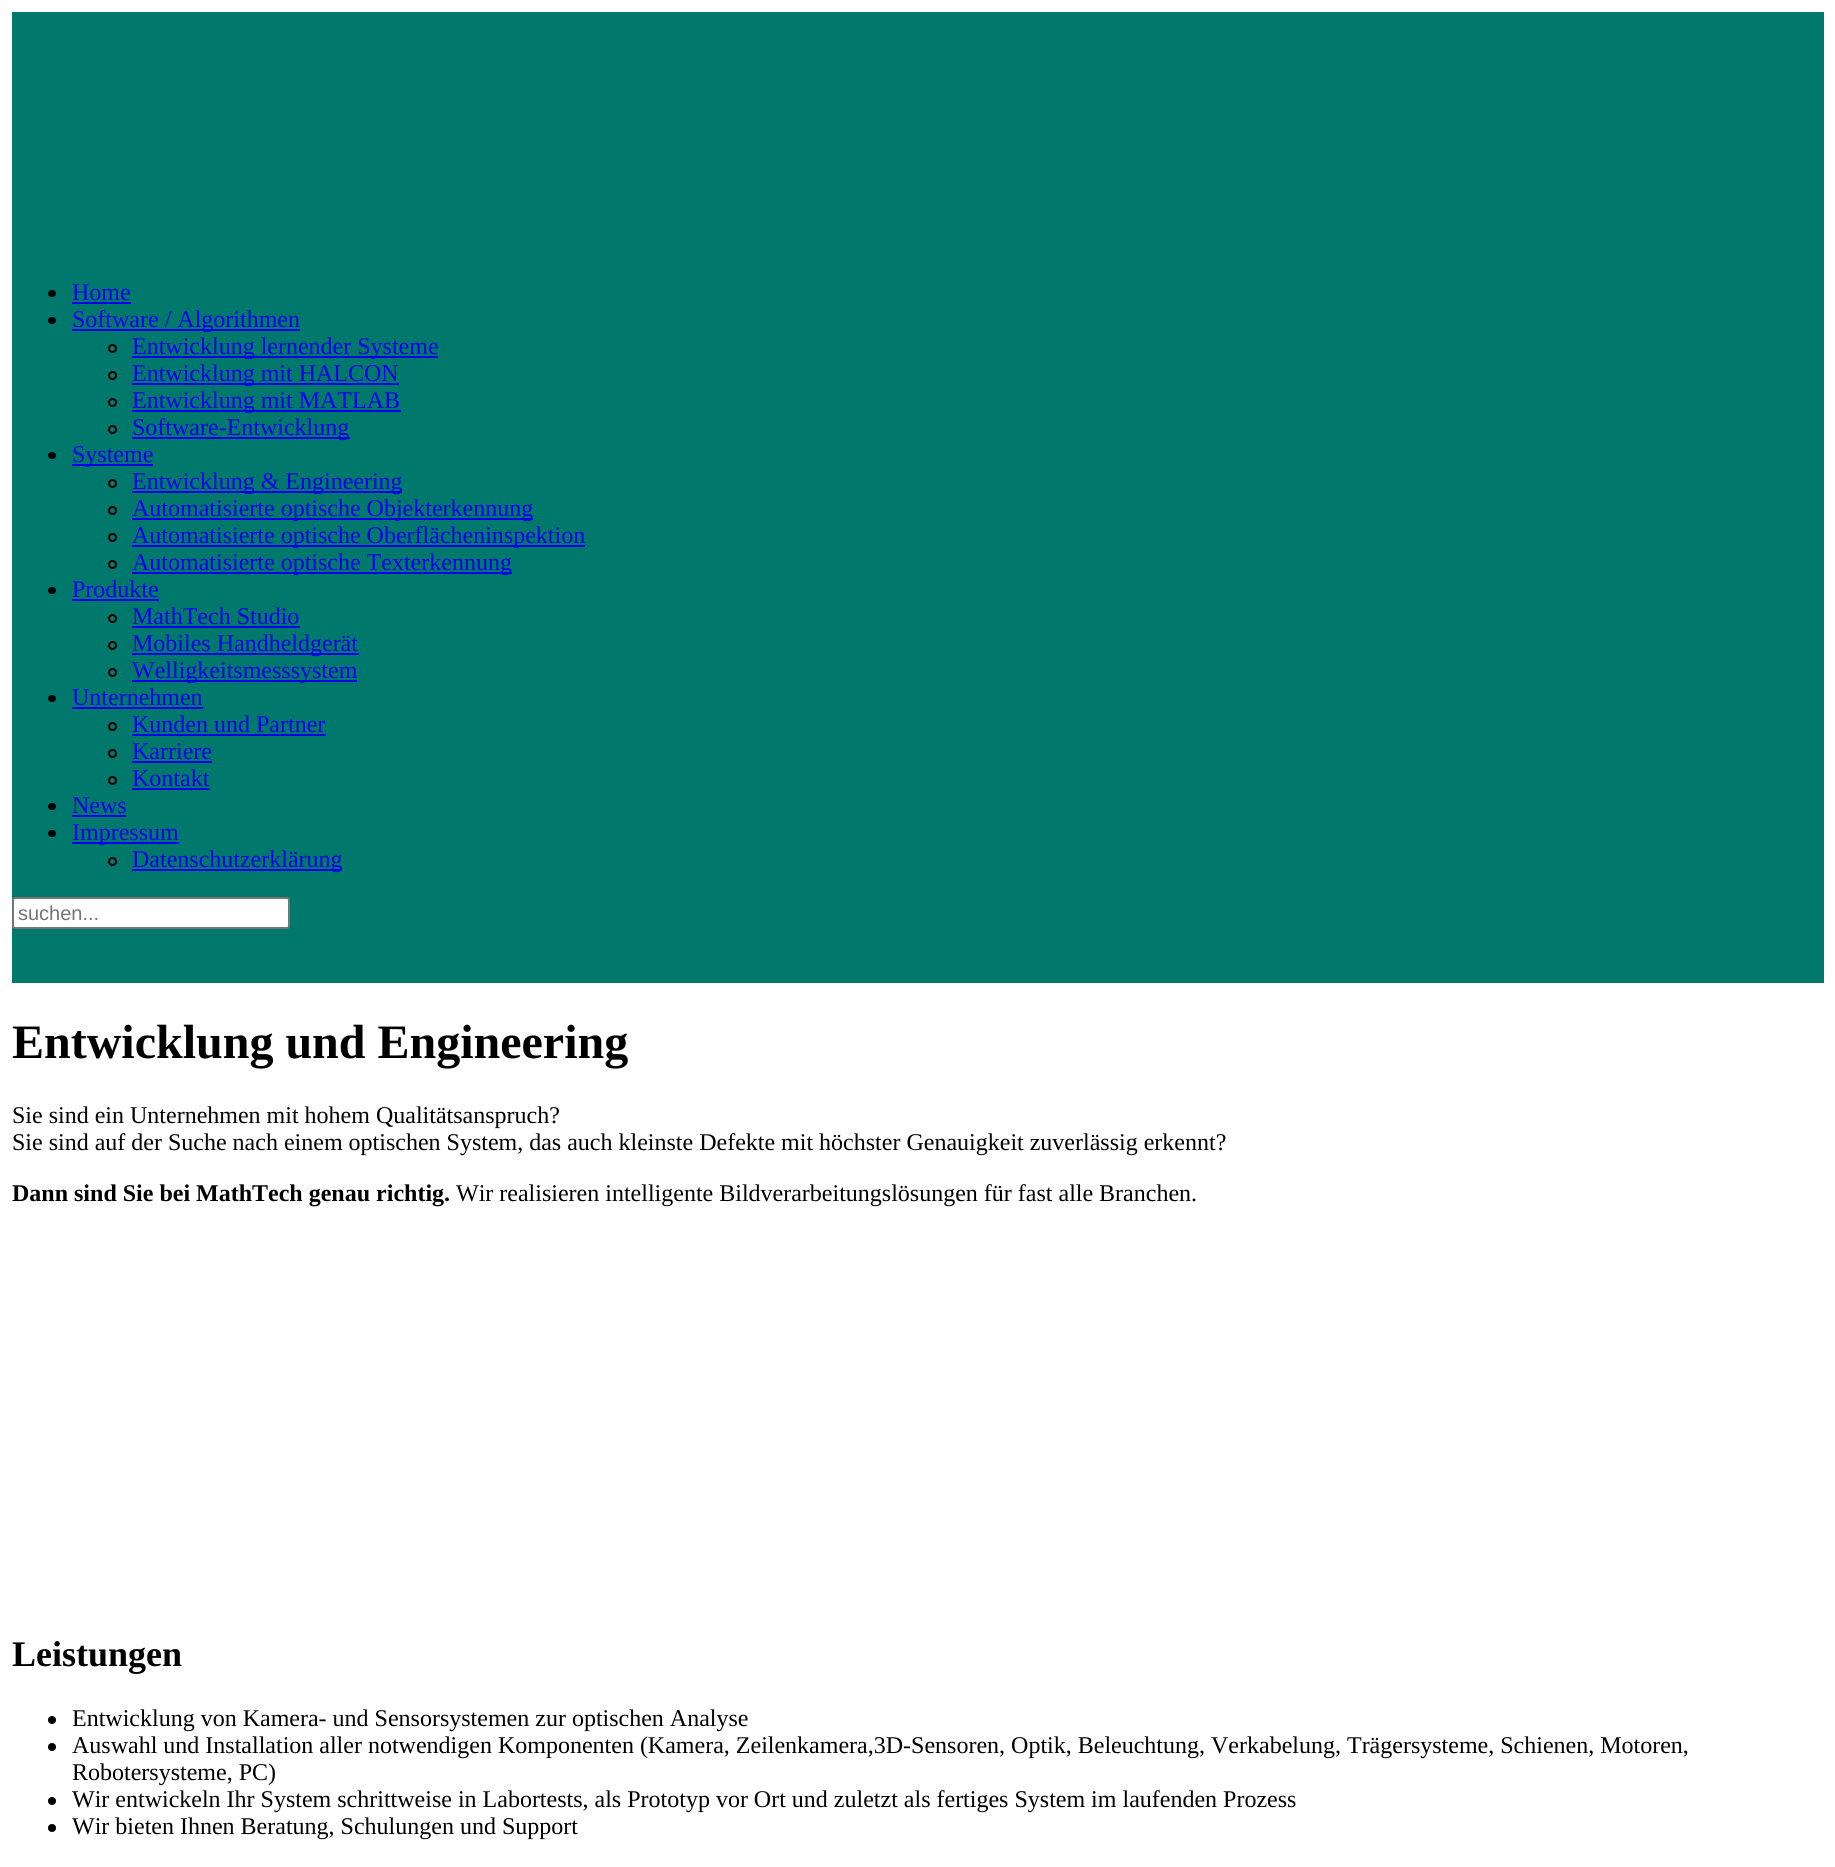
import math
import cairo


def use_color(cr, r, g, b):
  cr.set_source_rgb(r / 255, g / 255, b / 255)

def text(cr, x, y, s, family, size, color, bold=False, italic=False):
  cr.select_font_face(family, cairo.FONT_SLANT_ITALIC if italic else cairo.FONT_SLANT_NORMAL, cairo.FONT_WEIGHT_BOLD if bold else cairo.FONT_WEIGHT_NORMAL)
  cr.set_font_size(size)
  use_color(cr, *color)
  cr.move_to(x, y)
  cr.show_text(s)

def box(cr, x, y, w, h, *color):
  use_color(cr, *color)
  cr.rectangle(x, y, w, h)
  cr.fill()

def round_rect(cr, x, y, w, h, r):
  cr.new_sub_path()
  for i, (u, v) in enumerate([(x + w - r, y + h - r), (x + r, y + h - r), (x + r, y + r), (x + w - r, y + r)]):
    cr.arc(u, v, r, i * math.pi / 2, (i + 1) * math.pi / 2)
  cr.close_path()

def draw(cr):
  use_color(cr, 255, 255, 255)
  cr.paint()
  box(cr, 12, 12, 1812, 971, 0, 120, 108)
  use_color(cr, 0, 0, 0)
  round_rect(cr, 48, 290, 8, 7, 3.5)
  cr.fill()
  box(cr, 72, 302, 59, 2, 0, 0, 238)
  use_color(cr, 0, 0, 0)
  round_rect(cr, 48, 317, 8, 7, 3.5)
  cr.fill()
  box(cr, 72, 329, 228, 2, 0, 0, 238)
  cr.arc(112.5, 348.5, 3.5, 0, 2 * math.pi)
  use_color(cr, 0, 0, 0)
  cr.stroke()
  box(cr, 132, 356, 306, 2, 0, 0, 238)
  cr.arc(112.5, 375.5, 3.5, 0, 2 * math.pi)
  use_color(cr, 0, 0, 0)
  cr.stroke()
  box(cr, 132, 383, 267, 2, 0, 0, 238)
  cr.arc(112.5, 402.5, 3.5, 0, 2 * math.pi)
  use_color(cr, 0, 0, 0)
  cr.stroke()
  box(cr, 132, 410, 269, 2, 0, 0, 238)
  cr.arc(112.5, 429.5, 3.5, 0, 2 * math.pi)
  use_color(cr, 0, 0, 0)
  cr.stroke()
  box(cr, 132, 437, 218, 2, 0, 0, 238)
  use_color(cr, 0, 0, 0)
  round_rect(cr, 48, 452, 8, 7, 3.5)
  cr.fill()
  box(cr, 72, 464, 81, 2, 0, 0, 238)
  cr.arc(112.5, 483.5, 3.5, 0, 2 * math.pi)
  use_color(cr, 0, 0, 0)
  cr.stroke()
  box(cr, 132, 491, 270, 2, 0, 0, 238)
  cr.arc(112.5, 510.5, 3.5, 0, 2 * math.pi)
  use_color(cr, 0, 0, 0)
  cr.stroke()
  box(cr, 132, 518, 401, 2, 0, 0, 238)
  cr.arc(112.5, 537.5, 3.5, 0, 2 * math.pi)
  use_color(cr, 0, 0, 0)
  cr.stroke()
  box(cr, 132, 545, 453, 2, 0, 0, 238)
  cr.arc(112.5, 564.5, 3.5, 0, 2 * math.pi)
  use_color(cr, 0, 0, 0)
  cr.stroke()
  box(cr, 132, 572, 380, 2, 0, 0, 238)
  use_color(cr, 0, 0, 0)
  round_rect(cr, 48, 587, 8, 7, 3.5)
  cr.fill()
  box(cr, 72, 599, 87, 2, 0, 0, 238)
  cr.arc(112.5, 618.5, 3.5, 0, 2 * math.pi)
  use_color(cr, 0, 0, 0)
  cr.stroke()
  box(cr, 132, 626, 168, 2, 0, 0, 238)
  cr.arc(112.5, 645.5, 3.5, 0, 2 * math.pi)
  use_color(cr, 0, 0, 0)
  cr.stroke()
  box(cr, 132, 653, 227, 2, 0, 0, 238)
  cr.arc(112.5, 672.5, 3.5, 0, 2 * math.pi)
  use_color(cr, 0, 0, 0)
  cr.stroke()
  box(cr, 132, 680, 225, 2, 0, 0, 238)
  use_color(cr, 0, 0, 0)
  round_rect(cr, 48, 695, 8, 7, 3.5)
  cr.fill()
  box(cr, 72, 707, 131, 2, 0, 0, 238)
  cr.arc(112.5, 726.5, 3.5, 0, 2 * math.pi)
  use_color(cr, 0, 0, 0)
  cr.stroke()
  box(cr, 132, 734, 194, 2, 0, 0, 238)
  cr.arc(112.5, 753.5, 3.5, 0, 2 * math.pi)
  use_color(cr, 0, 0, 0)
  cr.stroke()
  box(cr, 132, 761, 80, 2, 0, 0, 238)
  cr.arc(112.5, 780.5, 3.5, 0, 2 * math.pi)
  use_color(cr, 0, 0, 0)
  cr.stroke()
  box(cr, 132, 788, 78, 2, 0, 0, 238)
  use_color(cr, 0, 0, 0)
  round_rect(cr, 48, 803, 8, 7, 3.5)
  cr.fill()
  box(cr, 72, 815, 54, 2, 0, 0, 238)
  use_color(cr, 0, 0, 0)
  round_rect(cr, 48, 830, 8, 7, 3.5)
  cr.fill()
  box(cr, 72, 842, 107, 2, 0, 0, 238)
  cr.arc(112.5, 861.5, 3.5, 0, 2 * math.pi)
  use_color(cr, 0, 0, 0)
  cr.stroke()
  box(cr, 132, 869, 210, 2, 0, 0, 238)
  use_color(cr, 255, 255, 255)
  round_rect(cr, 13, 898, 276, 30, 2)
  cr.fill_preserve()
  use_color(cr, 118, 118, 118)
  cr.stroke()
  use_color(cr, 0, 0, 0)
  cr.arc(52, 1720, 4, 0, 2 * math.pi)
  cr.fill()
  cr.arc(52, 1747, 4, 0, 2 * math.pi)
  cr.fill()
  cr.arc(52, 1801, 4, 0, 2 * math.pi)
  cr.fill()
  cr.arc(52, 1828, 4, 0, 2 * math.pi)
  cr.fill()
  text(cr, 72, 300, "Home", "Liberation Serif", 24, (0, 0, 238))
  text(cr, 72, 327, "Software / Algorithmen", "Liberation Serif", 24, (0, 0, 238))
  text(cr, 132, 354, "Entwicklung lernender Systeme", "Liberation Serif", 24, (0, 0, 238))
  text(cr, 132, 381, "Entwicklung mit HALCON", "Liberation Serif", 24, (0, 0, 238))
  text(cr, 132, 408, "Entwicklung mit MATLAB", "Liberation Serif", 24, (0, 0, 238))
  text(cr, 132, 435, "Software-Entwicklung", "Liberation Serif", 24, (0, 0, 238))
  text(cr, 72, 462, "Systeme", "Liberation Serif", 24, (0, 0, 238))
  text(cr, 132, 489, "Entwicklung & Engineering", "Liberation Serif", 24, (0, 0, 238))
  text(cr, 132, 516, "Automatisierte optische Objekterkennung", "Liberation Serif", 24, (0, 0, 238))
  text(cr, 132, 543, "Automatisierte optische Oberflächeninspektion", "Liberation Serif", 24, (0, 0, 238))
  text(cr, 132, 570, "Automatisierte optische Texterkennung", "Liberation Serif", 24, (0, 0, 238))
  text(cr, 72, 597, "Produkte", "Liberation Serif", 24, (0, 0, 238))
  text(cr, 132, 624, "MathTech Studio", "Liberation Serif", 24, (0, 0, 238))
  text(cr, 132, 651, "Mobiles Handheldgerät", "Liberation Serif", 24, (0, 0, 238))
  text(cr, 132, 678, "Welligkeitsmesssystem", "Liberation Serif", 24, (0, 0, 238))
  text(cr, 72, 705, "Unternehmen", "Liberation Serif", 24, (0, 0, 238))
  text(cr, 132, 732, "Kunden und Partner", "Liberation Serif", 24, (0, 0, 238))
  text(cr, 132, 759, "Karriere", "Liberation Serif", 24, (0, 0, 238))
  text(cr, 132, 786, "Kontakt", "Liberation Serif", 24, (0, 0, 238))
  text(cr, 72, 813, "News", "Liberation Serif", 24, (0, 0, 238))
  text(cr, 72, 840, "Impressum", "Liberation Serif", 24, (0, 0, 238))
  text(cr, 132, 867, "Datenschutzerklärung", "Liberation Serif", 24, (0, 0, 238))
  text(cr, 18, 920, "suchen...", "Liberation Sans", 20, (117, 117, 117))
  text(cr, 12, 1058, "Entwicklung und Engineering", "Liberation Serif", 48, (0, 0, 0), bold=True)
  text(cr, 12, 1123, "Sie sind ein Unternehmen mit hohem Qualitätsanspruch?", "Liberation Serif", 24, (0, 0, 0))
  text(cr, 12, 1150, "Sie sind auf der Suche nach einem optischen System, das auch kleinste Defekte mit höchster Genauigkeit zuverlässig erkennt?", "Liberation Serif", 24, (0, 0, 0))
  text(cr, 12, 1201, "Dann sind Sie bei MathTech genau richtig.", "Liberation Serif", 24, (0, 0, 0), bold=True)
  text(cr, 456, 1201, "Wir realisieren intelligente Bildverarbeitungslösungen für fast alle Branchen.", "Liberation Serif", 24, (0, 0, 0))
  text(cr, 12, 1666, "Leistungen", "Liberation Serif", 36, (0, 0, 0), bold=True)
  text(cr, 72, 1726, "Entwicklung von Kamera- und Sensorsystemen zur optischen Analyse", "Liberation Serif", 24, (0, 0, 0))
  text(cr, 72, 1753, "Auswahl und Installation aller notwendigen Komponenten (Kamera, Zeilenkamera,3D-Sensoren, Optik, Beleuchtung, Verkabelung, Trägersysteme, Schienen, Motoren,", "Liberation Serif", 24, (0, 0, 0))
  text(cr, 72, 1780, "Robotersysteme, PC)", "Liberation Serif", 24, (0, 0, 0))
  text(cr, 72, 1807, "Wir entwickeln Ihr System schrittweise in Labortests, als Prototyp vor Ort und zuletzt als fertiges System im laufenden Prozess", "Liberation Serif", 24, (0, 0, 0))
  text(cr, 72, 1834, "Wir bieten Ihnen Beratung, Schulungen und Support", "Liberation Serif", 24, (0, 0, 0))


surface = cairo.ImageSurface(cairo.FORMAT_RGB24, 1835, 1867)
cr = cairo.Context(surface)
options = cairo.FontOptions()
options.set_hint_metrics(cairo.HINT_METRICS_OFF)
options.set_hint_style(cairo.HINT_STYLE_NONE)
cr.set_font_options(options)
cr.set_miter_limit(4)
draw(cr)
surface.write_to_png("out.png")
